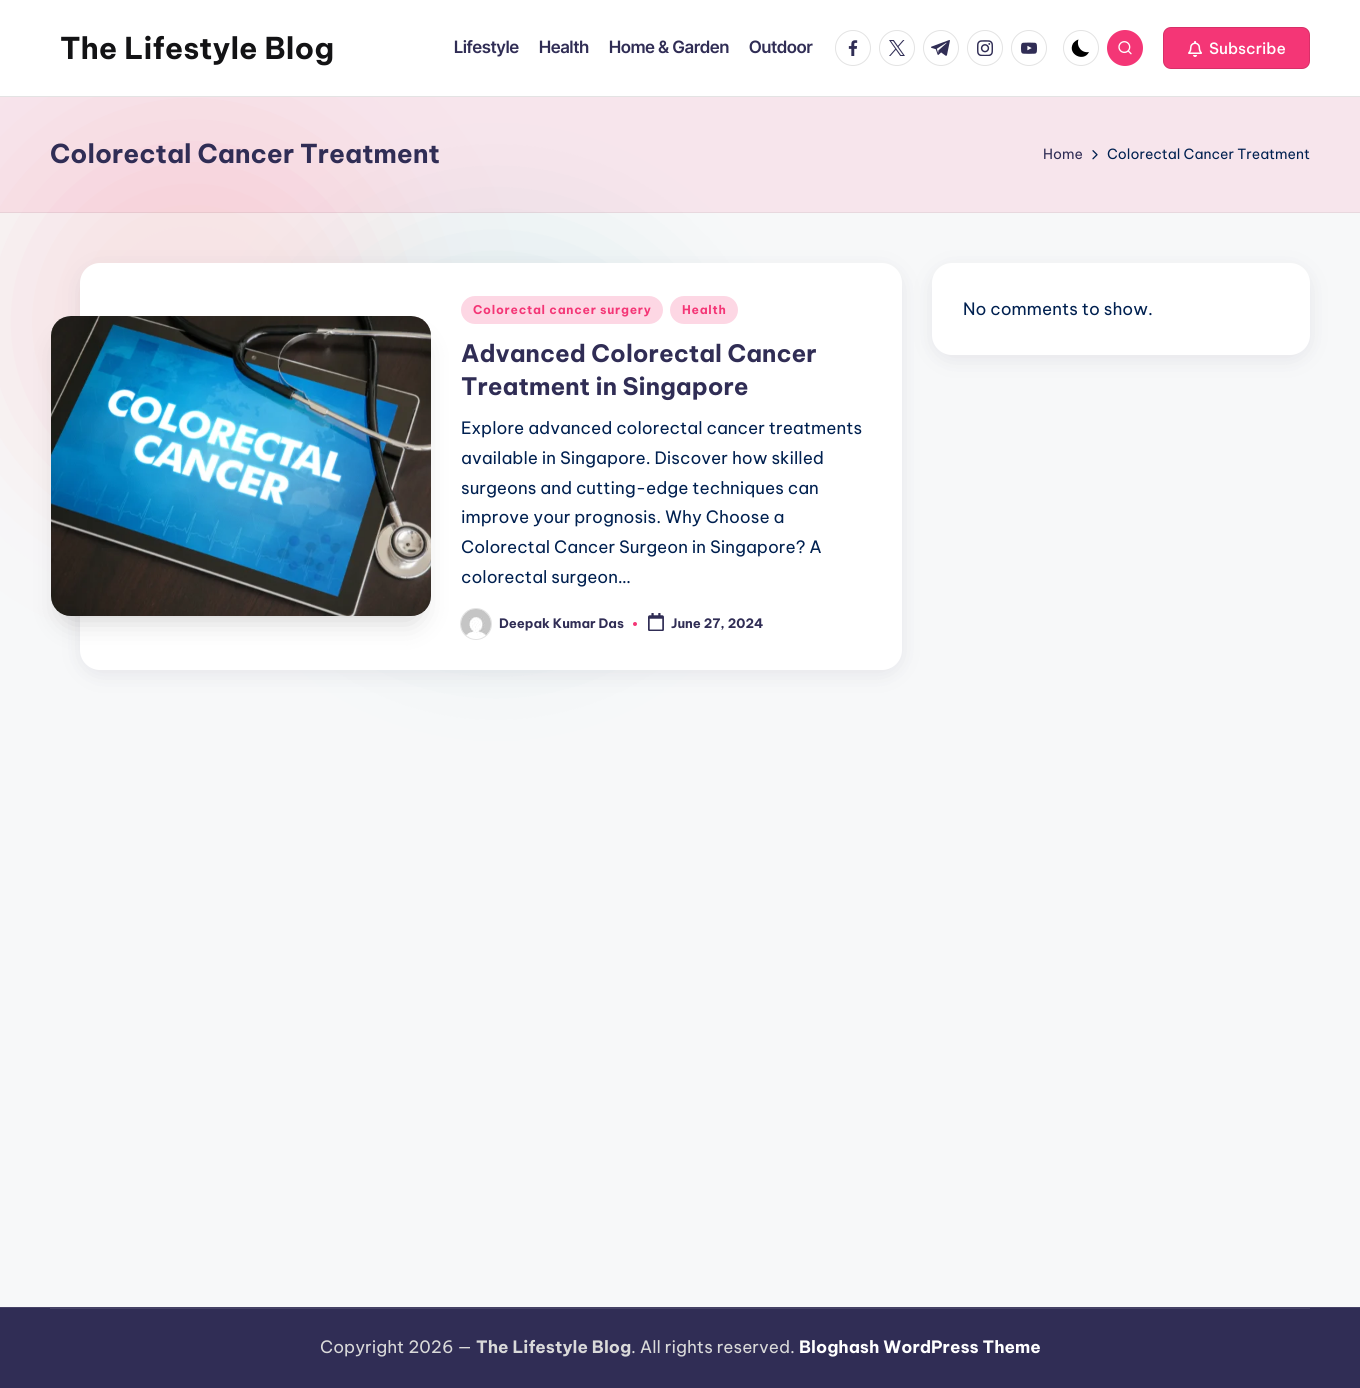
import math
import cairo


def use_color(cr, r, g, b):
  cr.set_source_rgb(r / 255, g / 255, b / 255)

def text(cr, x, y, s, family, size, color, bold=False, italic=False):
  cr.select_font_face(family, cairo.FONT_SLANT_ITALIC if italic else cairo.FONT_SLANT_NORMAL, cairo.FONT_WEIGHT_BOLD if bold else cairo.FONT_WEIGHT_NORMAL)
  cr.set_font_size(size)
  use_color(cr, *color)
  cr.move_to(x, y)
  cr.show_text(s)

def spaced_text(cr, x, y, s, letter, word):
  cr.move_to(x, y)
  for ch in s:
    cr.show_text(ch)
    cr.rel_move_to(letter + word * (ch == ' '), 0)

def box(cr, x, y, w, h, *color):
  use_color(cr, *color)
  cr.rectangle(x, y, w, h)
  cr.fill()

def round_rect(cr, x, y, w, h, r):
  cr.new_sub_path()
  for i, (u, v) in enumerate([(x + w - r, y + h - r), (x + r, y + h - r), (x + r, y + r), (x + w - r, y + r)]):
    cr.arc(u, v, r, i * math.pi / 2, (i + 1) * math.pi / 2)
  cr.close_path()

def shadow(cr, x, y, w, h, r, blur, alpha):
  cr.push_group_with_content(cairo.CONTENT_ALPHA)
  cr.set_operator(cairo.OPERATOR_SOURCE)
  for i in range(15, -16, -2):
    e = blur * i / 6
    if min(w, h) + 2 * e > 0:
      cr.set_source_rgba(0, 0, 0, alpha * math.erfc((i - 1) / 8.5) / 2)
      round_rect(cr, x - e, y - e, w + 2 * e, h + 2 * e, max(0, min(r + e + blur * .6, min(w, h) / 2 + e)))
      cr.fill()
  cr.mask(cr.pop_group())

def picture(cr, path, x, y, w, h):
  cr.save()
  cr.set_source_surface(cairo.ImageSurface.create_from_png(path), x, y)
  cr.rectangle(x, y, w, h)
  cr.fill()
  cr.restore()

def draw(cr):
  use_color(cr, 247, 248, 249)
  cr.paint()
  use_color(cr, 247, 227, 229)
  shadow(cr, 0, 130, 384, 384, 192, 64, 1)
  use_color(cr, 4, 134, 139)
  shadow(cr, 304, 240, 384, 384, 192, 64, 0.1)
  box(cr, 0, 0, 1360, 96, 255, 255, 255)
  box(cr, 0, 96, 1360, 1, 227, 227, 227)
  cr.arc(853, 48, 17.5, 0, 2 * math.pi)
  cr.set_line_width(1)
  cr.stroke()
  picture(cr, "img_01.png", 848, 40, 10, 16)
  cr.arc(897, 48, 17.5, 0, 2 * math.pi)
  cr.stroke()
  picture(cr, "img_02.png", 889, 40, 16, 16)
  cr.arc(941, 48, 17.5, 0, 2 * math.pi)
  cr.stroke()
  picture(cr, "img_03.png", 931, 40, 19, 16)
  cr.arc(985, 48, 17.5, 0, 2 * math.pi)
  cr.stroke()
  picture(cr, "img_04.png", 977, 40, 16, 16)
  cr.arc(1029, 48, 17.5, 0, 2 * math.pi)
  cr.stroke()
  picture(cr, "img_05.png", 1021, 42, 16, 12)
  cr.arc(1081, 48, 17.5, 0, 2 * math.pi)
  cr.stroke()
  use_color(cr, 0, 0, 0)
  cr.new_path()
  cr.move_to(1089, 52)
  cr.curve_to(1082, 53.5, 1076, 46.5, 1078.5, 39.5)
  cr.curve_to(1076.5, 40, 1074.5, 41.5, 1073, 43.5)
  cr.curve_to(1067, 54.5, 1084, 62.5, 1089, 52)
  cr.close_path()
  cr.fill()
  use_color(cr, 244, 54, 118)
  cr.arc(1125, 48, 18, 0, 2 * math.pi)
  cr.fill()
  picture(cr, "img_06.png", 1118, 41, 14, 14)
  round_rect(cr, 1163, 27, 147, 42, 8)
  cr.fill()
  round_rect(cr, 1163.5, 27.5, 146, 41, 7.5)
  cr.set_source_rgba(0, 0, 0, 0.12)
  cr.stroke()
  picture(cr, "img_07.png", 1188, 41, 14, 16)
  cr.set_source_rgba(0.957, 0.212, 0.463, 0.1)
  cr.rectangle(0, 97, 1360, 116)
  cr.fill()
  cr.set_source_rgba(0, 0, 0, 0.06)
  cr.rectangle(0, 212, 1360, 1)
  cr.fill()
  picture(cr, "img_08.png", 1092, 150, 6, 10)
  use_color(cr, 69, 67, 96)
  shadow(cr, 80, 268, 822, 407, 20, 10, 0.1)
  use_color(cr, 255, 255, 255)
  round_rect(cr, 80, 263, 822, 407, 20)
  cr.fill()
  use_color(cr, 253, 215, 228)
  round_rect(cr, 461, 296, 202, 28, 14)
  cr.fill()
  picture(cr, "img_10.png", 461, 609, 30, 28)
  cr.arc(476, 624, 15.5, 0, 2 * math.pi)
  cr.set_source_rgba(0.725, 0.725, 0.725, 0.4)
  cr.stroke()
  use_color(cr, 0, 0, 0)
  shadow(cr, 63, 344, 356, 276, 8, 14, 0.18)
  use_color(cr, 209, 209, 209)
  round_rect(cr, 51, 316, 380, 300, 20)
  cr.fill()
  picture(cr, "img_09.png", 51, 316, 380, 300)
  use_color(cr, 253, 215, 228)
  round_rect(cr, 670, 296, 68, 28, 14)
  cr.fill()
  use_color(cr, 244, 54, 118)
  cr.arc(635, 624, 2, 0, 2 * math.pi)
  cr.fill()
  picture(cr, "img_11.png", 648, 613, 16, 18)
  use_color(cr, 69, 67, 96)
  shadow(cr, 932, 268, 378, 92, 20, 10, 0.1)
  use_color(cr, 255, 255, 255)
  round_rect(cr, 932, 263, 378, 92, 20)
  cr.fill()
  box(cr, 0, 1308, 1360, 80, 48, 45, 85)
  box(cr, 0, 1307, 1360, 1, 69, 66, 102)
  box(cr, 50, 1308, 1260, 1, 69, 66, 102)
  text(cr, 60, 59, "The Lifestyle Blog", "Be Vietnam Pro", 30, (19, 19, 21), bold=True)
  text(cr, 454, 53, "Lifestyle", "Inter Tight SemiBold", 17, (48, 45, 85))
  text(cr, 539, 53, "Health", "Inter Tight SemiBold", 17, (48, 45, 85))
  text(cr, 609, 53, "Home & Garden", "Inter Tight SemiBold", 17, (48, 45, 85))
  text(cr, 749, 53, "Outdoor", "Inter Tight SemiBold", 17, (48, 45, 85))
  text(cr, 1209, 54, "Subscribe", "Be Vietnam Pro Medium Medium", 15.5, (255, 255, 255))
  text(cr, 50, 163, "Colorectal Cancer Treatment", "Be Vietnam Pro", 26, (48, 45, 85), bold=True)
  text(cr, 1043, 159, "Home", "Be Vietnam Pro", 14, (48, 45, 85))
  text(cr, 1107, 159, "Colorectal Cancer Treatment", "Be Vietnam Pro", 14, (0, 32, 80))
  cr.select_font_face("Be Vietnam Pro", cairo.FONT_SLANT_NORMAL, cairo.FONT_WEIGHT_BOLD)
  cr.set_font_size(12)
  use_color(cr, 244, 54, 118)
  spaced_text(cr, 473, 314, "Colorectal cancer surgery", 0.75, 0)
  spaced_text(cr, 682, 314, "Health", 0.75, 0)
  text(cr, 461, 362, "Advanced Colorectal Cancer", "Be Vietnam Pro", 24, (48, 45, 85), bold=True)
  text(cr, 461, 395, "Treatment in Singapore", "Be Vietnam Pro", 24, (48, 45, 85), bold=True)
  text(cr, 461, 434, "Explore advanced colorectal cancer treatments", "Be Vietnam Pro", 17, (0, 32, 80))
  text(cr, 461, 464, "available in Singapore. Discover how skilled", "Be Vietnam Pro", 17, (0, 32, 80))
  text(cr, 461, 494, "surgeons and cutting-edge techniques can", "Be Vietnam Pro", 17, (0, 32, 80))
  text(cr, 461, 523, "improve your prognosis. Why Choose a", "Be Vietnam Pro", 17, (0, 32, 80))
  text(cr, 461, 553, "Colorectal Cancer Surgeon in Singapore? A", "Be Vietnam Pro", 17, (0, 32, 80))
  text(cr, 461, 583, "colorectal surgeon…", "Be Vietnam Pro", 17, (0, 32, 80))
  text(cr, 499, 628, "Deepak Kumar Das", "Be Vietnam Pro", 13, (48, 45, 85), bold=True)
  text(cr, 671, 628, "June 27, 2024", "Be Vietnam Pro", 13, (48, 45, 85), bold=True)
  text(cr, 963, 315, "No comments to show.", "Be Vietnam Pro", 17, (0, 32, 80))
  text(cr, 320, 1353, "Copyright 2026 —", "Be Vietnam Pro", 17, (217, 217, 217))
  text(cr, 476, 1353, "The Lifestyle Blog", "Be Vietnam Pro", 17, (217, 217, 217), bold=True)
  text(cr, 631, 1353, ". All rights reserved.", "Be Vietnam Pro", 17, (217, 217, 217))
  text(cr, 799, 1353, "Bloghash WordPress Theme", "Be Vietnam Pro", 17, (255, 255, 255), bold=True)


surface = cairo.ImageSurface(cairo.FORMAT_RGB24, 1360, 1388)
cr = cairo.Context(surface)
options = cairo.FontOptions()
options.set_hint_metrics(cairo.HINT_METRICS_OFF)
options.set_hint_style(cairo.HINT_STYLE_NONE)
cr.set_font_options(options)
cr.set_miter_limit(4)
draw(cr)
surface.write_to_png("out.png")
